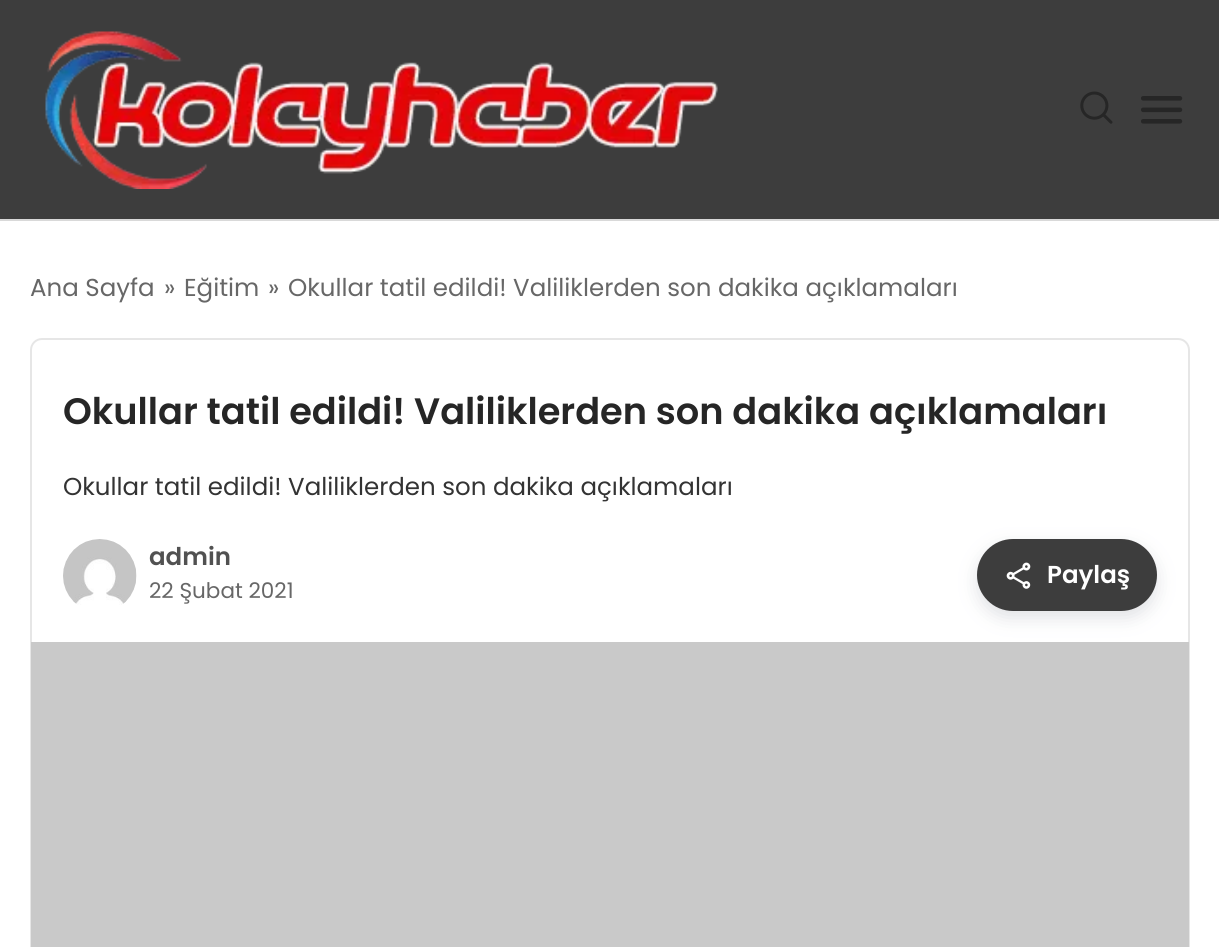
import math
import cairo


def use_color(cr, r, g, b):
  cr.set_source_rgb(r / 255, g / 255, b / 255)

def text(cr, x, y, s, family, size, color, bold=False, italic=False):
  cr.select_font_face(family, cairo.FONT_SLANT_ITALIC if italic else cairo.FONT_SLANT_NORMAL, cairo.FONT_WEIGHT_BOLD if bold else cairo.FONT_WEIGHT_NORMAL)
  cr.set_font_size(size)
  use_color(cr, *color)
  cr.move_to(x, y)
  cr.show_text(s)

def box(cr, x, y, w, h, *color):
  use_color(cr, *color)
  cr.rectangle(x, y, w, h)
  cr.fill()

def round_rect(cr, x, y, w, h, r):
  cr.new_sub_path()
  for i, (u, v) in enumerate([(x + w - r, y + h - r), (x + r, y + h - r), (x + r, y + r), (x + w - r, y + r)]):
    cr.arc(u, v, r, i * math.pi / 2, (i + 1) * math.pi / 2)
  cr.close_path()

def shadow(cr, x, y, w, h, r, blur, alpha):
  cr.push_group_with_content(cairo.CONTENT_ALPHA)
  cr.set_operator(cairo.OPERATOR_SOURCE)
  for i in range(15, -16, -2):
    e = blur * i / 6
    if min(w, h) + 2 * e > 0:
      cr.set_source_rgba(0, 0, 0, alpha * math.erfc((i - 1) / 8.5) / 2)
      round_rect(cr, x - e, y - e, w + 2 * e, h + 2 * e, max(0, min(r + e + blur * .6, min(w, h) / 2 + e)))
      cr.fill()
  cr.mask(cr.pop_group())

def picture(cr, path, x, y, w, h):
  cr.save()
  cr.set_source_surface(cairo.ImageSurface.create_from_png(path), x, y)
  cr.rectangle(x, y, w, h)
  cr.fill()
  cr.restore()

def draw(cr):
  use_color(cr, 255, 255, 255)
  cr.paint()
  box(cr, 0, 0, 1219, 219, 61, 61, 61)
  picture(cr, "img_01.png", 45, 31, 673, 158)
  picture(cr, "img_02.png", 1080, 91, 33, 33)
  picture(cr, "img_03.png", 1141, 96, 42, 28)
  box(cr, 0, 219, 1219, 2, 217, 217, 217)
  round_rect(cr, 31, 339, 1158, 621, 11)
  use_color(cr, 230, 230, 230)
  cr.stroke()
  picture(cr, "img_04.png", 63, 539, 74, 66)
  box(cr, 31, 642, 1158, 305, 201, 201, 201)
  use_color(cr, 107, 114, 128)
  shadow(cr, 977, 546, 180, 72, 36, 9, 0.2)
  use_color(cr, 61, 61, 61)
  round_rect(cr, 977, 539, 180, 72, 36)
  cr.fill()
  picture(cr, "img_05.png", 1006, 562, 25, 27)
  text(cr, 30, 296, "Ana Sayfa", "Poppins", 24.5, (103, 103, 103))
  text(cr, 164, 296, "»", "Poppins", 24.5, (103, 103, 103))
  text(cr, 184, 296, "Eğitim", "Poppins", 24.5, (103, 103, 103))
  text(cr, 268, 296, "»", "Poppins", 24.5, (103, 103, 103))
  text(cr, 288, 296, "Okullar tatil edildi! Valiliklerden son dakika açıklamaları", "Poppins", 24.5, (103, 103, 103))
  text(cr, 63, 424, "Okullar tatil edildi! Valiliklerden son dakika açıklamaları", "Poppins SemiBold", 36.75, (38, 38, 38))
  text(cr, 63, 495, "Okullar tatil edildi! Valiliklerden son dakika açıklamaları", "Poppins", 24.5, (51, 51, 51))
  text(cr, 149, 565, "admin", "Poppins SemiBold", 24.5, (81, 81, 81))
  text(cr, 149, 598, "22 Şubat 2021", "Poppins", 21.5, (103, 103, 103))
  text(cr, 1047, 583, "Paylaş", "Poppins SemiBold", 24.5, (255, 255, 255))


surface = cairo.ImageSurface(cairo.FORMAT_RGB24, 1219, 947)
cr = cairo.Context(surface)
options = cairo.FontOptions()
options.set_hint_metrics(cairo.HINT_METRICS_OFF)
options.set_hint_style(cairo.HINT_STYLE_NONE)
cr.set_font_options(options)
cr.set_miter_limit(4)
draw(cr)
surface.write_to_png("out.png")
